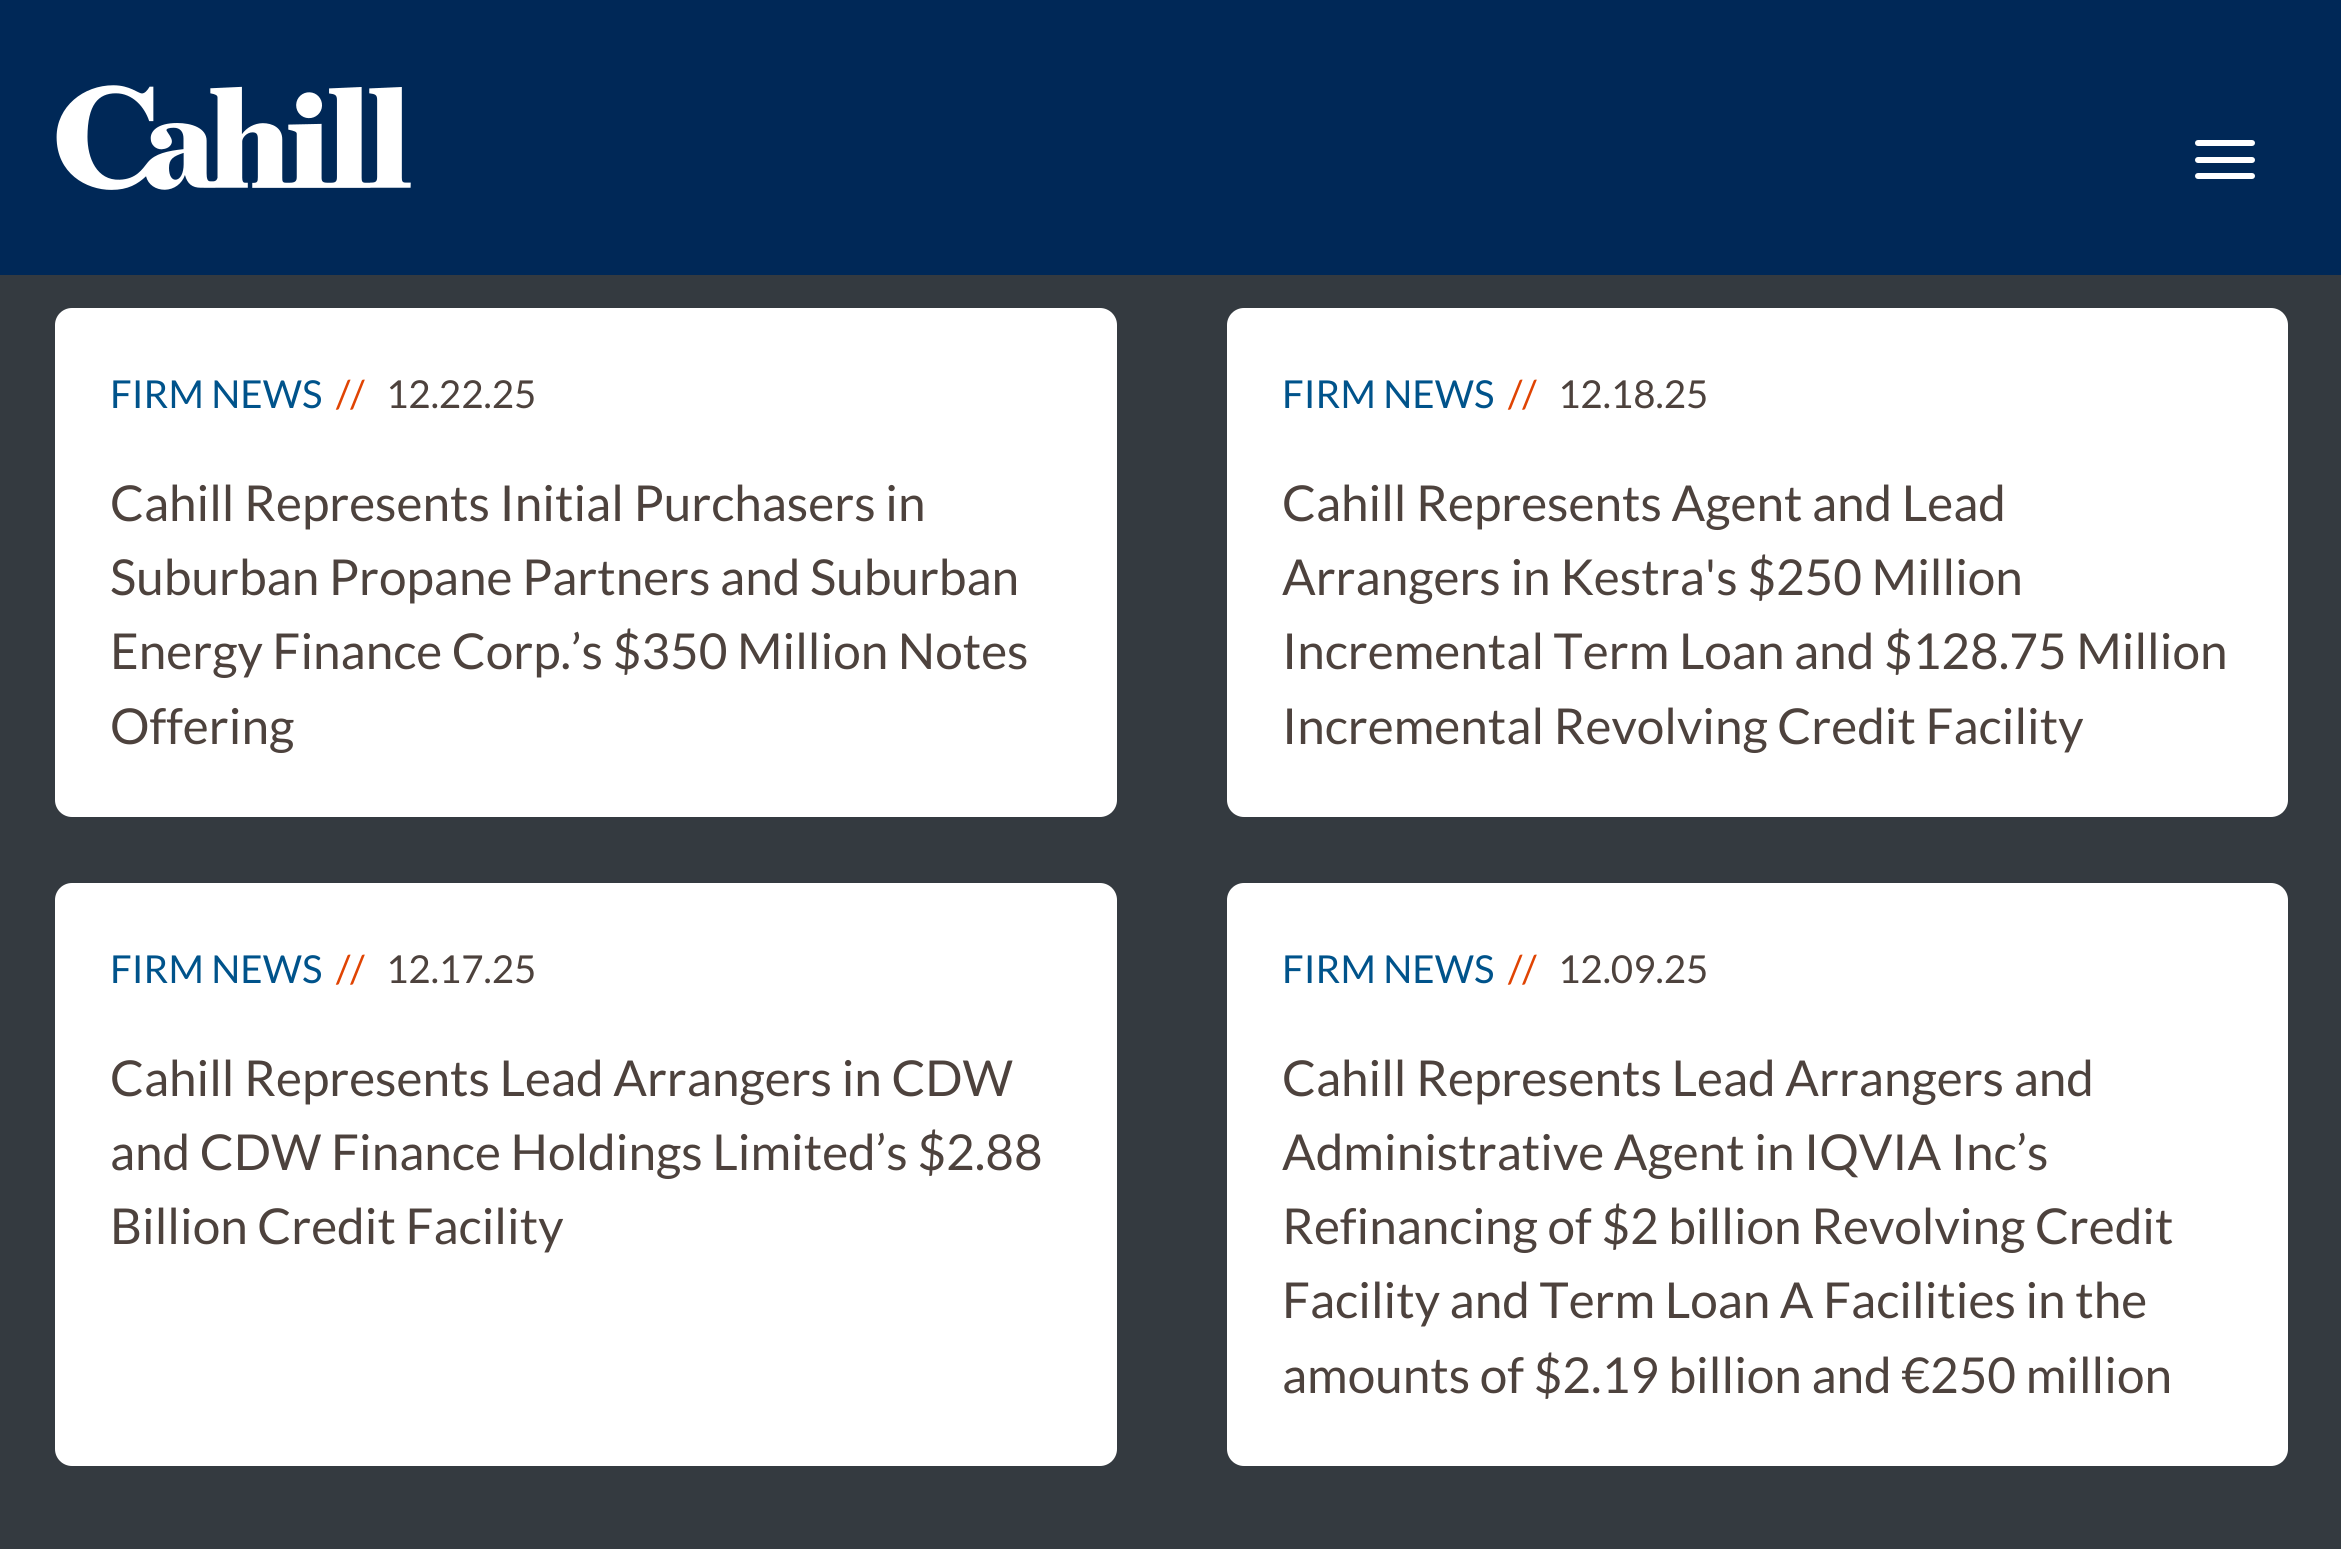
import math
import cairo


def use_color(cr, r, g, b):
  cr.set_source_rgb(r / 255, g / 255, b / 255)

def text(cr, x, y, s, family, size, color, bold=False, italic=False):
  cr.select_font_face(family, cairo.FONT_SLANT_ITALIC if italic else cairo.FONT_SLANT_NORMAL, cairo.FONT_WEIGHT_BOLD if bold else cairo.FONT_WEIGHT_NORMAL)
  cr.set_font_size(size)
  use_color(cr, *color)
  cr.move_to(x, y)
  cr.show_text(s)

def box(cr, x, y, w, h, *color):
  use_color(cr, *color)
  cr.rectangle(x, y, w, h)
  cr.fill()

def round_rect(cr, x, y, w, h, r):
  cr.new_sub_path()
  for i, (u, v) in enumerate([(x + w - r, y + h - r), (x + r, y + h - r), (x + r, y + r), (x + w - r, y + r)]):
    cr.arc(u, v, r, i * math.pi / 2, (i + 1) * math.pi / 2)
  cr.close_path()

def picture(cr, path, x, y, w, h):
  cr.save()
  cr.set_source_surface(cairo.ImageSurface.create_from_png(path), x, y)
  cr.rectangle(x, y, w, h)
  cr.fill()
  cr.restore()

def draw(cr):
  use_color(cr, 52, 58, 64)
  cr.paint()
  box(cr, 0, 0, 2341, 275, 0, 40, 87)
  picture(cr, "img_01.png", 56, 85, 355, 105)
  use_color(cr, 255, 255, 255)
  round_rect(cr, 2195, 140, 60, 6, 3)
  cr.fill()
  round_rect(cr, 2195, 157, 60, 6, 3)
  cr.fill()
  round_rect(cr, 2195, 173, 60, 6, 3)
  cr.fill()
  round_rect(cr, 55, 308, 1062, 509, 17)
  cr.fill()
  round_rect(cr, 1227, 308, 1061, 509, 17)
  cr.fill()
  round_rect(cr, 55, 883, 1062, 583, 17)
  cr.fill()
  round_rect(cr, 1227, 883, 1061, 583, 17)
  cr.fill()
  text(cr, 110, 408, "FIRM NEWS", "Lato", 38.5, (0, 83, 139))
  text(cr, 336, 408, "//", "Lato", 38.5, (224, 68, 3))
  text(cr, 386, 408, "12.22.25", "Lato", 38.5, (77, 66, 61))
  text(cr, 110, 521, "Cahill Represents Initial Purchasers in", "Lato", 49.5, (77, 66, 61))
  text(cr, 110, 595, "Suburban Propane Partners and Suburban", "Lato", 49.5, (77, 66, 61))
  text(cr, 110, 669, "Energy Finance Corp.’s $350 Million Notes", "Lato", 49.5, (77, 66, 61))
  text(cr, 110, 744, "Offering", "Lato", 49.5, (77, 66, 61))
  text(cr, 1282, 408, "FIRM NEWS", "Lato", 38.5, (0, 83, 139))
  text(cr, 1508, 408, "//", "Lato", 38.5, (224, 68, 3))
  text(cr, 1558, 408, "12.18.25", "Lato", 38.5, (77, 66, 61))
  text(cr, 1282, 521, "Cahill Represents Agent and Lead", "Lato", 49.5, (77, 66, 61))
  text(cr, 1282, 595, "Arrangers in Kestra's $250 Million", "Lato", 49.5, (77, 66, 61))
  text(cr, 1282, 669, "Incremental Term Loan and $128.75 Million", "Lato", 49.5, (77, 66, 61))
  text(cr, 1282, 744, "Incremental Revolving Credit Facility", "Lato", 49.5, (77, 66, 61))
  text(cr, 110, 983, "FIRM NEWS", "Lato", 38.5, (0, 83, 139))
  text(cr, 336, 983, "//", "Lato", 38.5, (224, 68, 3))
  text(cr, 386, 983, "12.17.25", "Lato", 38.5, (77, 66, 61))
  text(cr, 110, 1096, "Cahill Represents Lead Arrangers in CDW", "Lato", 49.5, (77, 66, 61))
  text(cr, 110, 1170, "and CDW Finance Holdings Limited’s $2.88", "Lato", 49.5, (77, 66, 61))
  text(cr, 110, 1244, "Billion Credit Facility", "Lato", 49.5, (77, 66, 61))
  text(cr, 1282, 983, "FIRM NEWS", "Lato", 38.5, (0, 83, 139))
  text(cr, 1508, 983, "//", "Lato", 38.5, (224, 68, 3))
  text(cr, 1558, 983, "12.09.25", "Lato", 38.5, (77, 66, 61))
  text(cr, 1282, 1096, "Cahill Represents Lead Arrangers and", "Lato", 49.5, (77, 66, 61))
  text(cr, 1282, 1170, "Administrative Agent in IQVIA Inc’s", "Lato", 49.5, (77, 66, 61))
  text(cr, 1282, 1244, "Refinancing of $2 billion Revolving Credit", "Lato", 49.5, (77, 66, 61))
  text(cr, 1282, 1318, "Facility and Term Loan A Facilities in the", "Lato", 49.5, (77, 66, 61))
  text(cr, 1282, 1393, "amounts of $2.19 billion and €250 million", "Lato", 49.5, (77, 66, 61))


surface = cairo.ImageSurface(cairo.FORMAT_RGB24, 2341, 1549)
cr = cairo.Context(surface)
options = cairo.FontOptions()
options.set_hint_metrics(cairo.HINT_METRICS_OFF)
options.set_hint_style(cairo.HINT_STYLE_NONE)
cr.set_font_options(options)
cr.set_miter_limit(4)
draw(cr)
surface.write_to_png("out.png")
